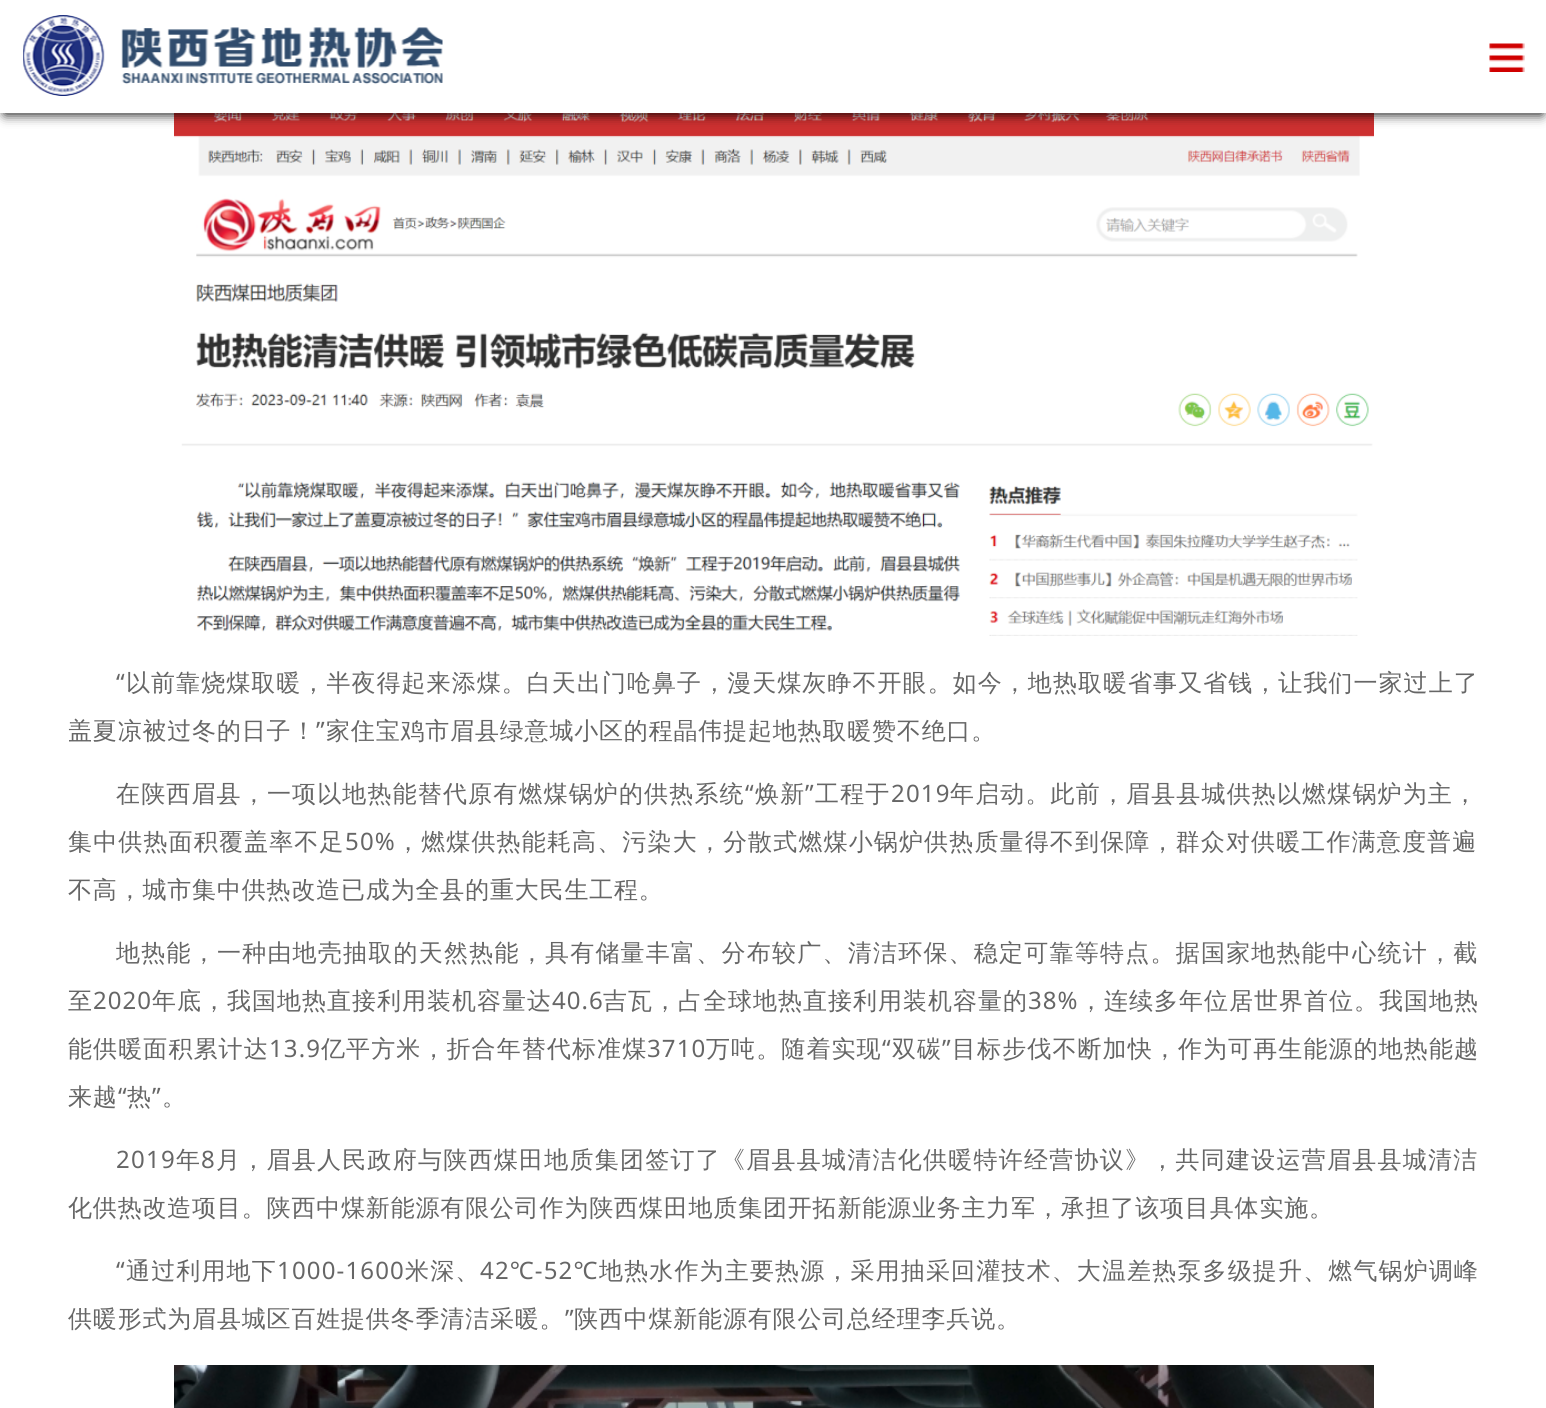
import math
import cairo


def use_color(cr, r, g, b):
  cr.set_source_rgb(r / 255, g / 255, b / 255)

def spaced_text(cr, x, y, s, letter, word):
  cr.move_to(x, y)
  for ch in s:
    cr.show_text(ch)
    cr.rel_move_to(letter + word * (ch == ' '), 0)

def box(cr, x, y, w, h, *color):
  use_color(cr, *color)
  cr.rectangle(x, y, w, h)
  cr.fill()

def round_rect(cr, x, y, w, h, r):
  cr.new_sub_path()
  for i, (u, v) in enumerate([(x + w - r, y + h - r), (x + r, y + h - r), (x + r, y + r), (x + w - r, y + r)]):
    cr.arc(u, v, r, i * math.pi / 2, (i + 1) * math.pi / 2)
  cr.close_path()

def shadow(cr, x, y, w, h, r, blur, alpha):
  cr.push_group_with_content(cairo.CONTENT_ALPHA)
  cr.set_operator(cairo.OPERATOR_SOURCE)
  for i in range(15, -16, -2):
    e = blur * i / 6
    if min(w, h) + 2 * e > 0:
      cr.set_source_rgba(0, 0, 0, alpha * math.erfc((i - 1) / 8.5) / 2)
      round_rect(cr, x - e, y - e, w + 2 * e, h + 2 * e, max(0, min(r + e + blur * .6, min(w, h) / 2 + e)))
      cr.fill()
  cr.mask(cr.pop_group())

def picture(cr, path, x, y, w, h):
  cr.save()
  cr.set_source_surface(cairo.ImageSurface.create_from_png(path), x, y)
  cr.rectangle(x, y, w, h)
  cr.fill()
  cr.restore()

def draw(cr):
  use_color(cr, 255, 255, 255)
  cr.paint()
  picture(cr, "img_03.png", 174, 113, 1200, 523)
  use_color(cr, 0, 0, 0)
  shadow(cr, 5, 11, 1537, 103, 0, 6, 1)
  box(cr, 0, 0, 1546, 113, 255, 255, 255)
  picture(cr, "img_01.png", 23, 15, 420, 81)
  picture(cr, "img_02.png", 1489, 43, 36, 29)
  picture(cr, "img_04.png", 174, 1365, 1200, 43)
  cr.select_font_face("Noto Sans")
  cr.set_font_size(24)
  use_color(cr, 102, 102, 102)
  spaced_text(cr, 116, 691, "“", 1.05, 0)
  cr.select_font_face("WenQuanYi Zen Hei Medium")
  spaced_text(cr, 126, 691, "以前靠烧煤取暖，半夜得起来添煤。白天出门呛鼻子，漫天煤灰睁不开眼。如今，地热取暖省事又省钱，让我们一家过上了", 1.05, 0)
  spaced_text(cr, 68, 739, "盖夏凉被过冬的日子！", 0.82, 0)
  cr.select_font_face("Noto Sans")
  spaced_text(cr, 316, 739, "”", 0.82, 0)
  cr.select_font_face("WenQuanYi Zen Hei Medium")
  spaced_text(cr, 326, 739, "家住宝鸡市眉县绿意城小区的程晶伟提起地热取暖赞不绝口。", 0.82, 0)
  spaced_text(cr, 116, 802, "在陕西眉县，一项以地热能替代原有燃煤锅炉的供热系统", 1.15, 0)
  cr.select_font_face("Noto Sans")
  spaced_text(cr, 745, 802, "“", 1.15, 0)
  cr.select_font_face("WenQuanYi Zen Hei Medium")
  spaced_text(cr, 755, 802, "焕新", 1.15, 0)
  cr.select_font_face("Noto Sans")
  spaced_text(cr, 805, 802, "”", 1.15, 0)
  cr.select_font_face("WenQuanYi Zen Hei Medium")
  spaced_text(cr, 815, 802, "工程于", 1.15, 0)
  cr.select_font_face("Noto Sans")
  spaced_text(cr, 891, 802, "2019", 1.15, 0)
  cr.select_font_face("WenQuanYi Zen Hei Medium")
  spaced_text(cr, 950, 802, "年启动。此前，眉县县城供热以燃煤锅炉为主，", 1.15, 0)
  spaced_text(cr, 68, 850, "集中供热面积覆盖率不足", 1.15, 0)
  cr.select_font_face("Noto Sans")
  spaced_text(cr, 345, 850, "50%", 1.15, 0)
  cr.select_font_face("WenQuanYi Zen Hei Medium")
  spaced_text(cr, 396, 850, "，燃煤供热能耗高、污染大，分散式燃煤小锅炉供热质量得不到保障，群众对供暖工作满意度普遍", 1.15, 0)
  spaced_text(cr, 68, 898, "不高，城市集中供热改造已成为全县的重大民生工程。", 0.82, 0)
  spaced_text(cr, 116, 961, "地热能，一种由地壳抽取的天然热能，具有储量丰富、分布较广、清洁环保、稳定可靠等特点。据国家地热能中心统计，截", 1.23, 0)
  spaced_text(cr, 68, 1009, "至", 1, 0)
  cr.select_font_face("Noto Sans")
  spaced_text(cr, 93, 1009, "2020", 1, 0)
  cr.select_font_face("WenQuanYi Zen Hei Medium")
  spaced_text(cr, 152, 1009, "年底，我国地热直接利用装机容量达", 1, 0)
  cr.select_font_face("Noto Sans")
  spaced_text(cr, 552, 1009, "40.6", 1, 0)
  cr.select_font_face("WenQuanYi Zen Hei Medium")
  spaced_text(cr, 603, 1009, "吉瓦，占全球地热直接利用装机容量的", 1, 0)
  cr.select_font_face("Noto Sans")
  spaced_text(cr, 1028, 1009, "38%", 1, 0)
  cr.select_font_face("WenQuanYi Zen Hei Medium")
  spaced_text(cr, 1079, 1009, "，连续多年位居世界首位。我国地热", 1, 0)
  spaced_text(cr, 68, 1057, "能供暖面积累计达", 1.1, 0)
  cr.select_font_face("Noto Sans")
  spaced_text(cr, 269, 1057, "13.9", 1.1, 0)
  cr.select_font_face("WenQuanYi Zen Hei Medium")
  spaced_text(cr, 321, 1057, "亿平方米，折合年替代标准煤", 1.1, 0)
  cr.select_font_face("Noto Sans")
  spaced_text(cr, 647, 1057, "3710", 1.1, 0)
  cr.select_font_face("WenQuanYi Zen Hei Medium")
  spaced_text(cr, 706, 1057, "万吨。随着实现", 1.1, 0)
  cr.select_font_face("Noto Sans")
  spaced_text(cr, 882, 1057, "“", 1.1, 0)
  cr.select_font_face("WenQuanYi Zen Hei Medium")
  spaced_text(cr, 892, 1057, "双碳", 1.1, 0)
  cr.select_font_face("Noto Sans")
  spaced_text(cr, 942, 1057, "”", 1.1, 0)
  cr.select_font_face("WenQuanYi Zen Hei Medium")
  spaced_text(cr, 952, 1057, "目标步伐不断加快，作为可再生能源的地热能越", 1.1, 0)
  spaced_text(cr, 68, 1105, "来越", 0.82, 0)
  cr.select_font_face("Noto Sans")
  spaced_text(cr, 118, 1105, "“", 0.82, 0)
  cr.select_font_face("WenQuanYi Zen Hei Medium")
  spaced_text(cr, 127, 1105, "热", 0.82, 0)
  cr.select_font_face("Noto Sans")
  spaced_text(cr, 152, 1105, "”", 0.82, 0)
  cr.select_font_face("WenQuanYi Zen Hei Medium")
  spaced_text(cr, 162, 1105, "。", 0.82, 0)
  cr.select_font_face("Noto Sans")
  spaced_text(cr, 116, 1168, "2019", 1.25, 0)
  cr.select_font_face("WenQuanYi Zen Hei Medium")
  spaced_text(cr, 176, 1168, "年", 1.25, 0)
  cr.select_font_face("Noto Sans")
  spaced_text(cr, 201, 1168, "8", 1.25, 0)
  cr.select_font_face("WenQuanYi Zen Hei Medium")
  spaced_text(cr, 216, 1168, "月，眉县人民政府与陕西煤田地质集团签订了《眉县县城清洁化供暖特许经营协议》，共同建设运营眉县县城清洁", 1.25, 0)
  spaced_text(cr, 68, 1216, "化供热改造项目。陕西中煤新能源有限公司作为陕西煤田地质集团开拓新能源业务主力军，承担了该项目具体实施。", 0.82, 0)
  cr.select_font_face("Noto Sans")
  spaced_text(cr, 116, 1279, "“", 1.15, 0)
  cr.select_font_face("WenQuanYi Zen Hei Medium")
  spaced_text(cr, 126, 1279, "通过利用地下", 1.15, 0)
  cr.select_font_face("Noto Sans")
  spaced_text(cr, 277, 1279, "1000-1600", 1.15, 0)
  cr.select_font_face("WenQuanYi Zen Hei Medium")
  spaced_text(cr, 405, 1279, "米深、", 1.15, 0)
  cr.select_font_face("Noto Sans")
  spaced_text(cr, 480, 1279, "42℃-52℃", 1.15, 0)
  cr.select_font_face("WenQuanYi Zen Hei Medium")
  spaced_text(cr, 599, 1279, "地热水作为主要热源，采用抽采回灌技术、大温差热泵多级提升、燃气锅炉调峰", 1.15, 0)
  spaced_text(cr, 68, 1327, "供暖形式为眉县城区百姓提供冬季清洁采暖。", 0.82, 0)
  cr.select_font_face("Noto Sans")
  spaced_text(cr, 565, 1327, "”", 0.82, 0)
  cr.select_font_face("WenQuanYi Zen Hei Medium")
  spaced_text(cr, 574, 1327, "陕西中煤新能源有限公司总经理李兵说。", 0.82, 0)


surface = cairo.ImageSurface(cairo.FORMAT_RGB24, 1546, 1408)
cr = cairo.Context(surface)
options = cairo.FontOptions()
options.set_hint_metrics(cairo.HINT_METRICS_OFF)
options.set_hint_style(cairo.HINT_STYLE_NONE)
cr.set_font_options(options)
cr.set_miter_limit(4)
draw(cr)
surface.write_to_png("out.png")
